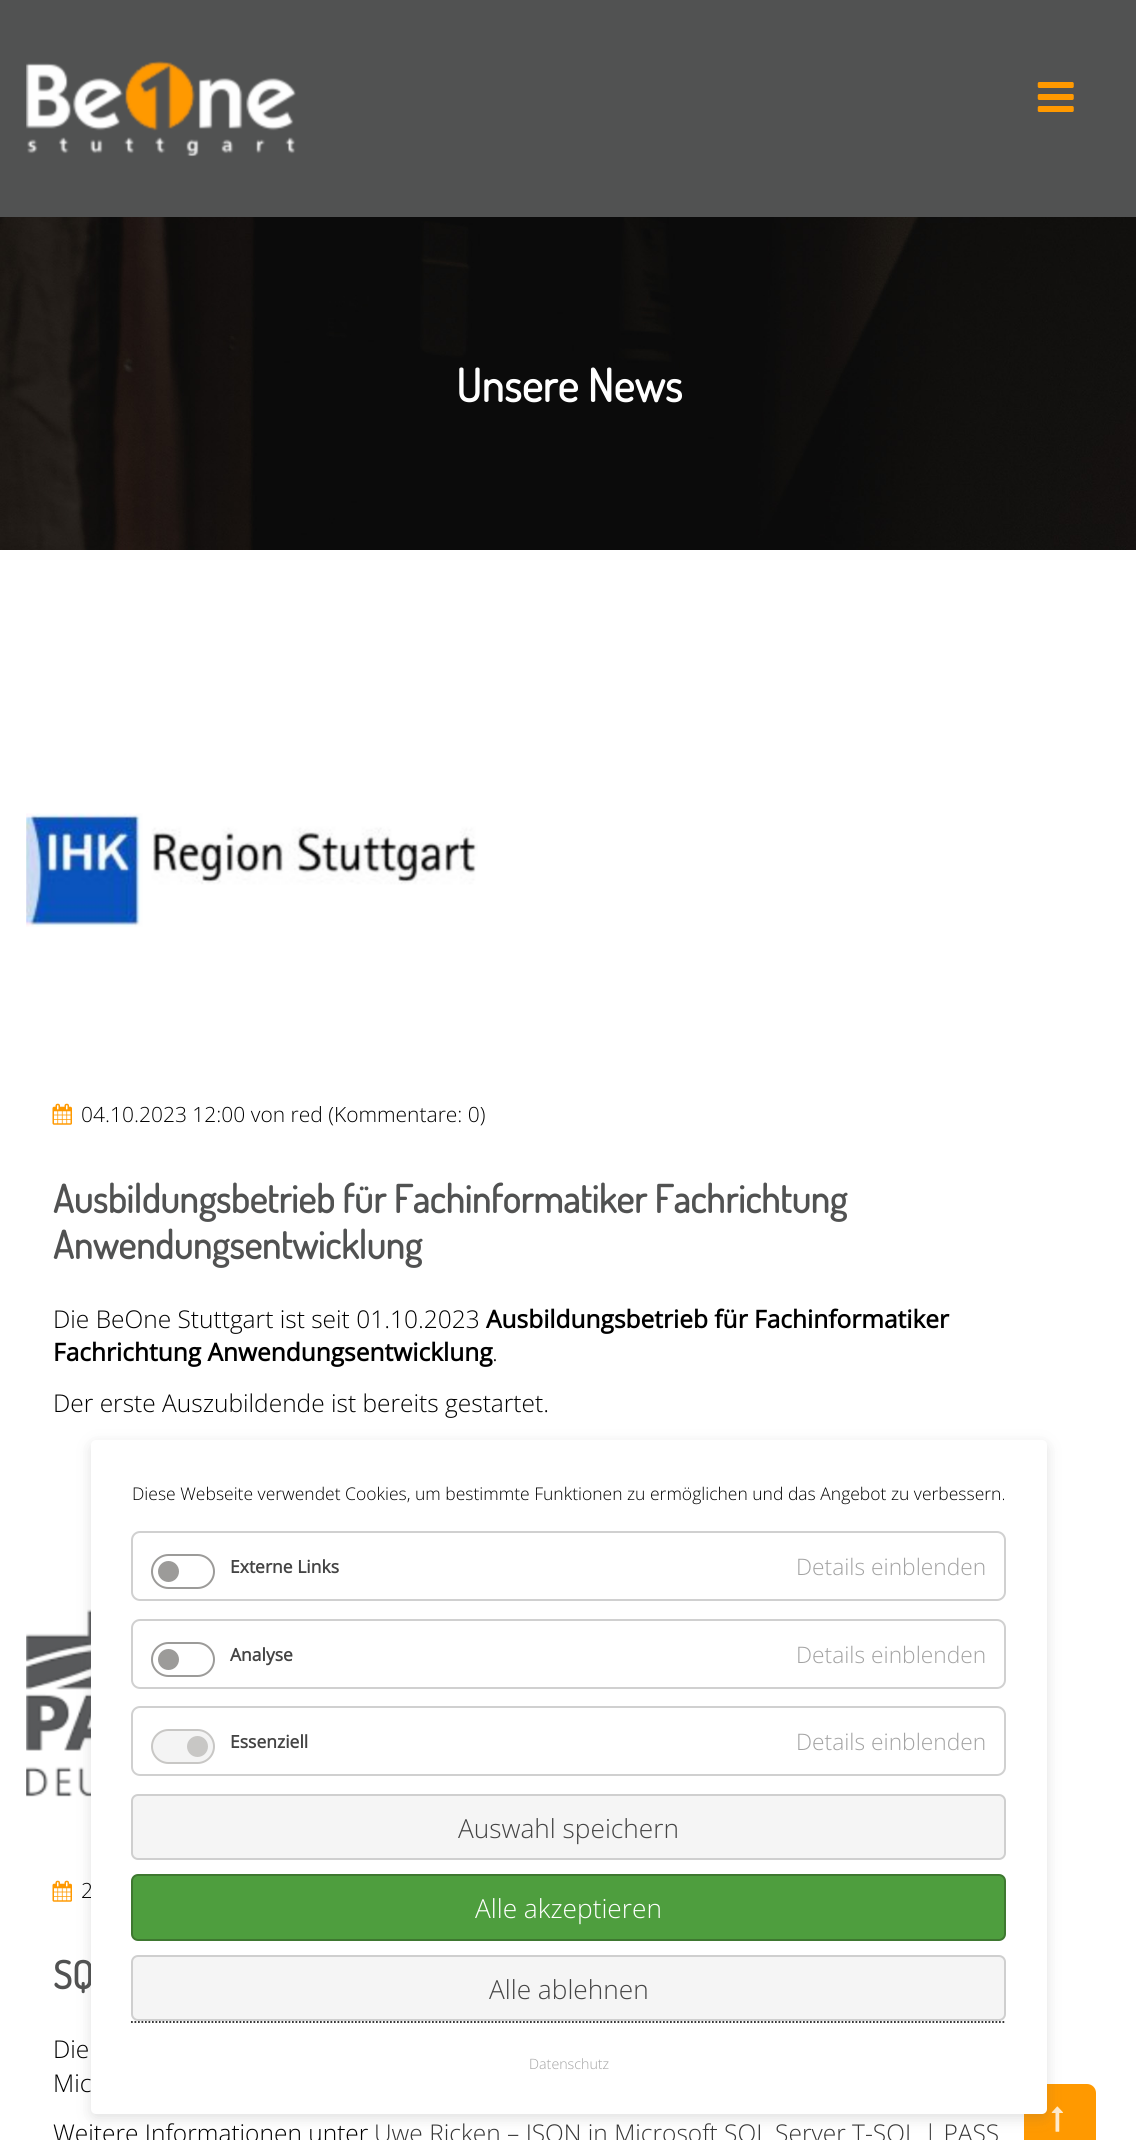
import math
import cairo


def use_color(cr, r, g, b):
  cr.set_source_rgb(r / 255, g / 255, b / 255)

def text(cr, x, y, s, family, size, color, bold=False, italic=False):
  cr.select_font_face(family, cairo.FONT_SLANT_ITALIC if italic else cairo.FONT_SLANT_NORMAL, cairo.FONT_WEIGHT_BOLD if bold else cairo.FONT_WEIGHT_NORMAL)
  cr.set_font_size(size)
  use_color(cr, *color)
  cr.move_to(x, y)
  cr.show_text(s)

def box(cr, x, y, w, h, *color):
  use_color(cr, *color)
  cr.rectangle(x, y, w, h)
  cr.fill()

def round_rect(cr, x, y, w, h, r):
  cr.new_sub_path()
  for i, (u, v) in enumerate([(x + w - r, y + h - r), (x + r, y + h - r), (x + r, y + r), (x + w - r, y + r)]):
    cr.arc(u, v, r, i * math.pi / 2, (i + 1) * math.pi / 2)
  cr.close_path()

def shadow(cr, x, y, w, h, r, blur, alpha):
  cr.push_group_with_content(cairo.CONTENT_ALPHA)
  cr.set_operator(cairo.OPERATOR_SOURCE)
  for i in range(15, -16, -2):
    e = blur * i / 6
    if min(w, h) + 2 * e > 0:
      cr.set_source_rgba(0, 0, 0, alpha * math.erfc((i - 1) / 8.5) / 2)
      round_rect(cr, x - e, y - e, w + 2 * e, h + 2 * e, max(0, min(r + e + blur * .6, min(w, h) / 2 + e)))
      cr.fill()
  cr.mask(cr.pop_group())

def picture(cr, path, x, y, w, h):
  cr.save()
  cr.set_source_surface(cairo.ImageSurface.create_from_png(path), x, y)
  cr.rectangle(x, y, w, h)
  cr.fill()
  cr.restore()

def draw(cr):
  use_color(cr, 255, 255, 255)
  cr.paint()
  box(cr, 0, 0, 1136, 217, 81, 82, 82)
  picture(cr, "img_01.png", 26, 61, 270, 96)
  picture(cr, "img_02.png", 1037, 82, 37, 30)
  use_color(cr, 255, 153, 0)
  cr.new_path()
  cr.move_to(1033, 2084)
  cr.line_to(1087, 2084)
  cr.curve_to(1092, 2084, 1096, 2088, 1096, 2093)
  cr.line_to(1096, 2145)
  cr.curve_to(1096, 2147, 1094, 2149, 1092, 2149)
  cr.line_to(1028, 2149)
  cr.curve_to(1026, 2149, 1024, 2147, 1024, 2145)
  cr.line_to(1024, 2093)
  cr.curve_to(1024, 2088, 1028, 2084, 1033, 2084)
  cr.close_path()
  cr.fill()
  picture(cr, "img_03.png", 1051, 2106, 12, 26)
  picture(cr, "img_04.png", 0, 217, 1136, 333)
  picture(cr, "img_05.png", 26, 813, 452, 114)
  picture(cr, "img_06.png", 52, 1103, 20, 22)
  picture(cr, "img_07.png", 26, 1609, 65, 188)
  picture(cr, "img_06.png", 52, 1880, 20, 22)
  use_color(cr, 99, 99, 99)
  shadow(cr, 91, 1444, 956, 674, 5, 7, 0.2)
  text(cr, 456, 402, "Unsere News", "Dosis", 45.5, (255, 255, 255), bold=True)
  text(cr, 81, 1122, "04.10.2023 12:00 von red (Kommentare: 0)", "Open Sans Light", 21, (0, 0, 0))
  text(cr, 53, 1213, "Ausbildungsbetrieb für Fachinformatiker Fachrichtung", "Dosis", 38.5, (81, 82, 82), bold=True)
  text(cr, 53, 1259, "Anwendungsentwicklung", "Dosis", 38.5, (81, 82, 82), bold=True)
  text(cr, 53, 1328, "Die BeOne Stuttgart ist seit 01.10.2023", "Open Sans Light", 24.5, (0, 0, 0))
  text(cr, 486, 1328, "Ausbildungsbetrieb für Fachinformatiker", "Open Sans", 24.5, (0, 0, 0), bold=True)
  text(cr, 53, 1361, "Fachrichtung Anwendungsentwicklung", "Open Sans", 24.5, (0, 0, 0), bold=True)
  text(cr, 492, 1361, ".", "Open Sans Light", 24.5, (0, 0, 0))
  text(cr, 53, 1412, "Der erste Auszubildende ist bereits gestartet.", "Open Sans Light", 24.5, (0, 0, 0))
  text(cr, 81, 1898, "2", "Open Sans Light", 21, (0, 0, 0))
  text(cr, 53, 1989, "SQ", "Dosis", 38.5, (81, 82, 82), bold=True)
  text(cr, 53, 2058, "Die", "Open Sans Light", 24.5, (0, 0, 0))
  text(cr, 53, 2092, "Mic", "Open Sans Light", 24.5, (0, 0, 0))
  text(cr, 53, 2142, "Weitere Informationen unter", "Open Sans Light", 24.5, (0, 0, 0))
  text(cr, 374, 2142, "Uwe Ricken – JSON in Microsoft SQL Server T-SQL | PASS", "Open Sans Light", 24.5, (53, 53, 53))
  use_color(cr, 255, 255, 255)
  round_rect(cr, 91, 1440, 956, 674, 5)
  cr.fill()
  text(cr, 132, 1500, "Diese Webseite verwendet Cookies, um bestimmte Funktionen zu ermöglichen und das Angebot zu verbessern.", "Open Sans Light", 17.5, (0, 0, 0))
  round_rect(cr, 132, 1532, 873, 68, 8)
  use_color(cr, 208, 208, 208)
  cr.stroke()
  round_rect(cr, 152, 1555, 62, 33, 16.5)
  use_color(cr, 156, 155, 153)
  cr.stroke()
  text(cr, 230, 1573, "Externe Links", "Open Sans", 17.5, (68, 68, 68), bold=True)
  use_color(cr, 156, 155, 153)
  cr.new_path()
  cr.arc(168.5, 1571.5, 10.5, 0, 2 * math.pi)
  cr.fill()
  text(cr, 796, 1575, "Details einblenden", "Open Sans Light", 22.75, (162, 162, 162))
  round_rect(cr, 132, 1620, 873, 68, 8)
  use_color(cr, 208, 208, 208)
  cr.stroke()
  round_rect(cr, 152, 1643, 62, 33, 16.5)
  use_color(cr, 156, 155, 153)
  cr.stroke()
  text(cr, 230, 1661, "Analyse", "Open Sans", 17.5, (68, 68, 68), bold=True)
  use_color(cr, 156, 155, 153)
  cr.new_path()
  cr.arc(168.5, 1659.5, 10.5, 0, 2 * math.pi)
  cr.fill()
  text(cr, 796, 1663, "Details einblenden", "Open Sans Light", 22.75, (162, 162, 162))
  round_rect(cr, 132, 1707, 873, 68, 8)
  use_color(cr, 208, 208, 208)
  cr.stroke()
  use_color(cr, 244, 244, 244)
  round_rect(cr, 152, 1730, 62, 33, 16.5)
  cr.fill_preserve()
  use_color(cr, 200, 199, 197)
  cr.stroke()
  text(cr, 230, 1748, "Essenziell", "Open Sans", 17.5, (68, 68, 68), bold=True)
  use_color(cr, 200, 199, 197)
  cr.new_path()
  cr.arc(197.5, 1746.5, 10.5, 0, 2 * math.pi)
  cr.fill()
  text(cr, 796, 1750, "Details einblenden", "Open Sans Light", 22.75, (162, 162, 162))
  cr.new_path()
  cr.move_to(131, 2022)
  cr.line_to(1006, 2022)
  use_color(cr, 34, 34, 34)
  cr.set_line_width(1.8)
  cr.set_dash([1.75, 1.75])
  cr.stroke()
  use_color(cr, 245, 245, 245)
  round_rect(cr, 132, 1795, 873, 64, 6)
  cr.fill_preserve()
  use_color(cr, 207, 207, 207)
  cr.set_line_width(2)
  cr.set_dash([])
  cr.stroke()
  text(cr, 458, 1838, "Auswahl speichern", "Open Sans Light", 26.25, (68, 68, 68))
  use_color(cr, 78, 158, 62)
  round_rect(cr, 132, 1875, 873, 65, 6)
  cr.fill_preserve()
  use_color(cr, 62, 120, 48)
  cr.stroke()
  text(cr, 475, 1918, "Alle akzeptieren", "Open Sans Light", 26.25, (255, 255, 255))
  use_color(cr, 245, 245, 245)
  round_rect(cr, 132, 1956, 873, 64, 6)
  cr.fill_preserve()
  use_color(cr, 207, 207, 207)
  cr.stroke()
  text(cr, 489, 1999, "Alle ablehnen", "Open Sans Light", 26.25, (68, 68, 68))
  text(cr, 529, 2069, "Datenschutz", "Open Sans Light", 14.25, (162, 162, 162))


surface = cairo.ImageSurface(cairo.FORMAT_RGB24, 1136, 2140)
cr = cairo.Context(surface)
options = cairo.FontOptions()
options.set_hint_metrics(cairo.HINT_METRICS_OFF)
options.set_hint_style(cairo.HINT_STYLE_NONE)
cr.set_font_options(options)
cr.set_miter_limit(4)
draw(cr)
surface.write_to_png("out.png")
